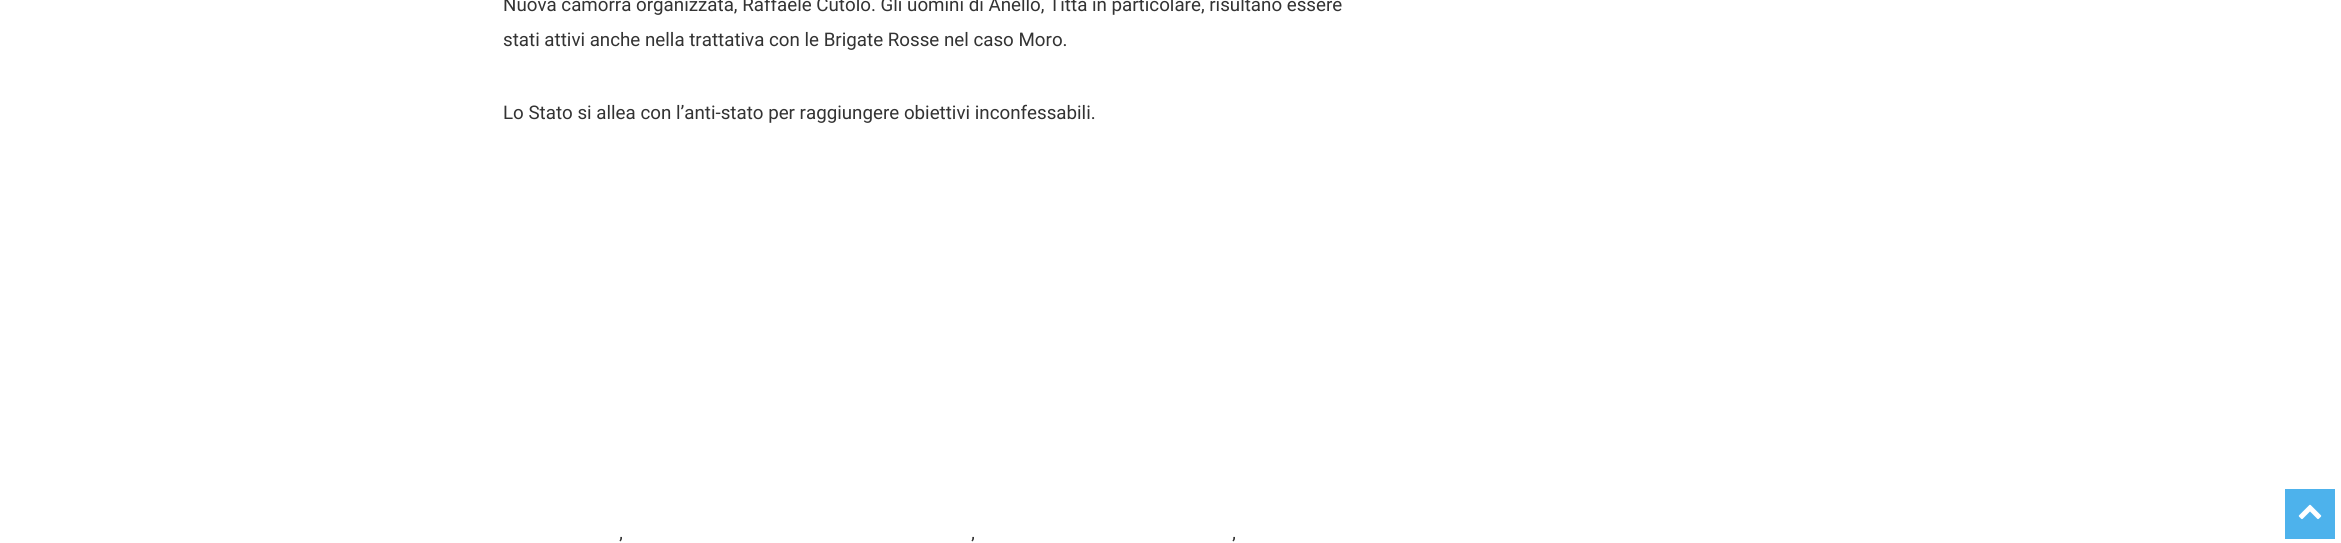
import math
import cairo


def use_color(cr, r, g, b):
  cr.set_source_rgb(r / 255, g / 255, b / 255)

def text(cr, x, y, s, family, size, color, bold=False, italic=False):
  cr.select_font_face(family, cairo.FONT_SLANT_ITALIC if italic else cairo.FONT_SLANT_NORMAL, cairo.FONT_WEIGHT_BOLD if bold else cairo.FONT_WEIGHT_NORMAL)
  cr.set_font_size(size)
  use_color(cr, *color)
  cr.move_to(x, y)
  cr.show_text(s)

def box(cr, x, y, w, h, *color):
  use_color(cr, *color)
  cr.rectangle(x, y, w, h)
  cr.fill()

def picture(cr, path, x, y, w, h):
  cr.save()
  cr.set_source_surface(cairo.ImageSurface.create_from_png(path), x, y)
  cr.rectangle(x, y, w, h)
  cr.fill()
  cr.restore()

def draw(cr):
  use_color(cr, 255, 255, 255)
  cr.paint()
  box(cr, 2285, 489, 50, 50, 77, 178, 236)
  picture(cr, "img_01.png", 2298, 504, 24, 16)
  text(cr, 503, 11, "Nuova camorra organizzata, Raffaele Cutolo. Gli uomini di Anello, Titta in particolare, risultano essere", "Roboto", 18.75, (51, 51, 51))
  text(cr, 503, 46, "stati attivi anche nella trattativa con le Brigate Rosse nel caso Moro.", "Roboto", 18.75, (51, 51, 51))
  text(cr, 503, 119, "Lo Stato si allea con l’anti-stato per raggiungere obiettivi inconfessabili.", "Roboto", 18.75, (51, 51, 51))
  text(cr, 619, 551, "’", "Roboto", 18.75, (51, 51, 51))
  text(cr, 971, 551, "’", "Roboto", 18.75, (51, 51, 51))
  text(cr, 1232, 551, "’", "Roboto", 18.75, (51, 51, 51))


surface = cairo.ImageSurface(cairo.FORMAT_RGB24, 2341, 543)
cr = cairo.Context(surface)
options = cairo.FontOptions()
options.set_hint_metrics(cairo.HINT_METRICS_OFF)
options.set_hint_style(cairo.HINT_STYLE_NONE)
cr.set_font_options(options)
cr.set_miter_limit(4)
draw(cr)
surface.write_to_png("out.png")
